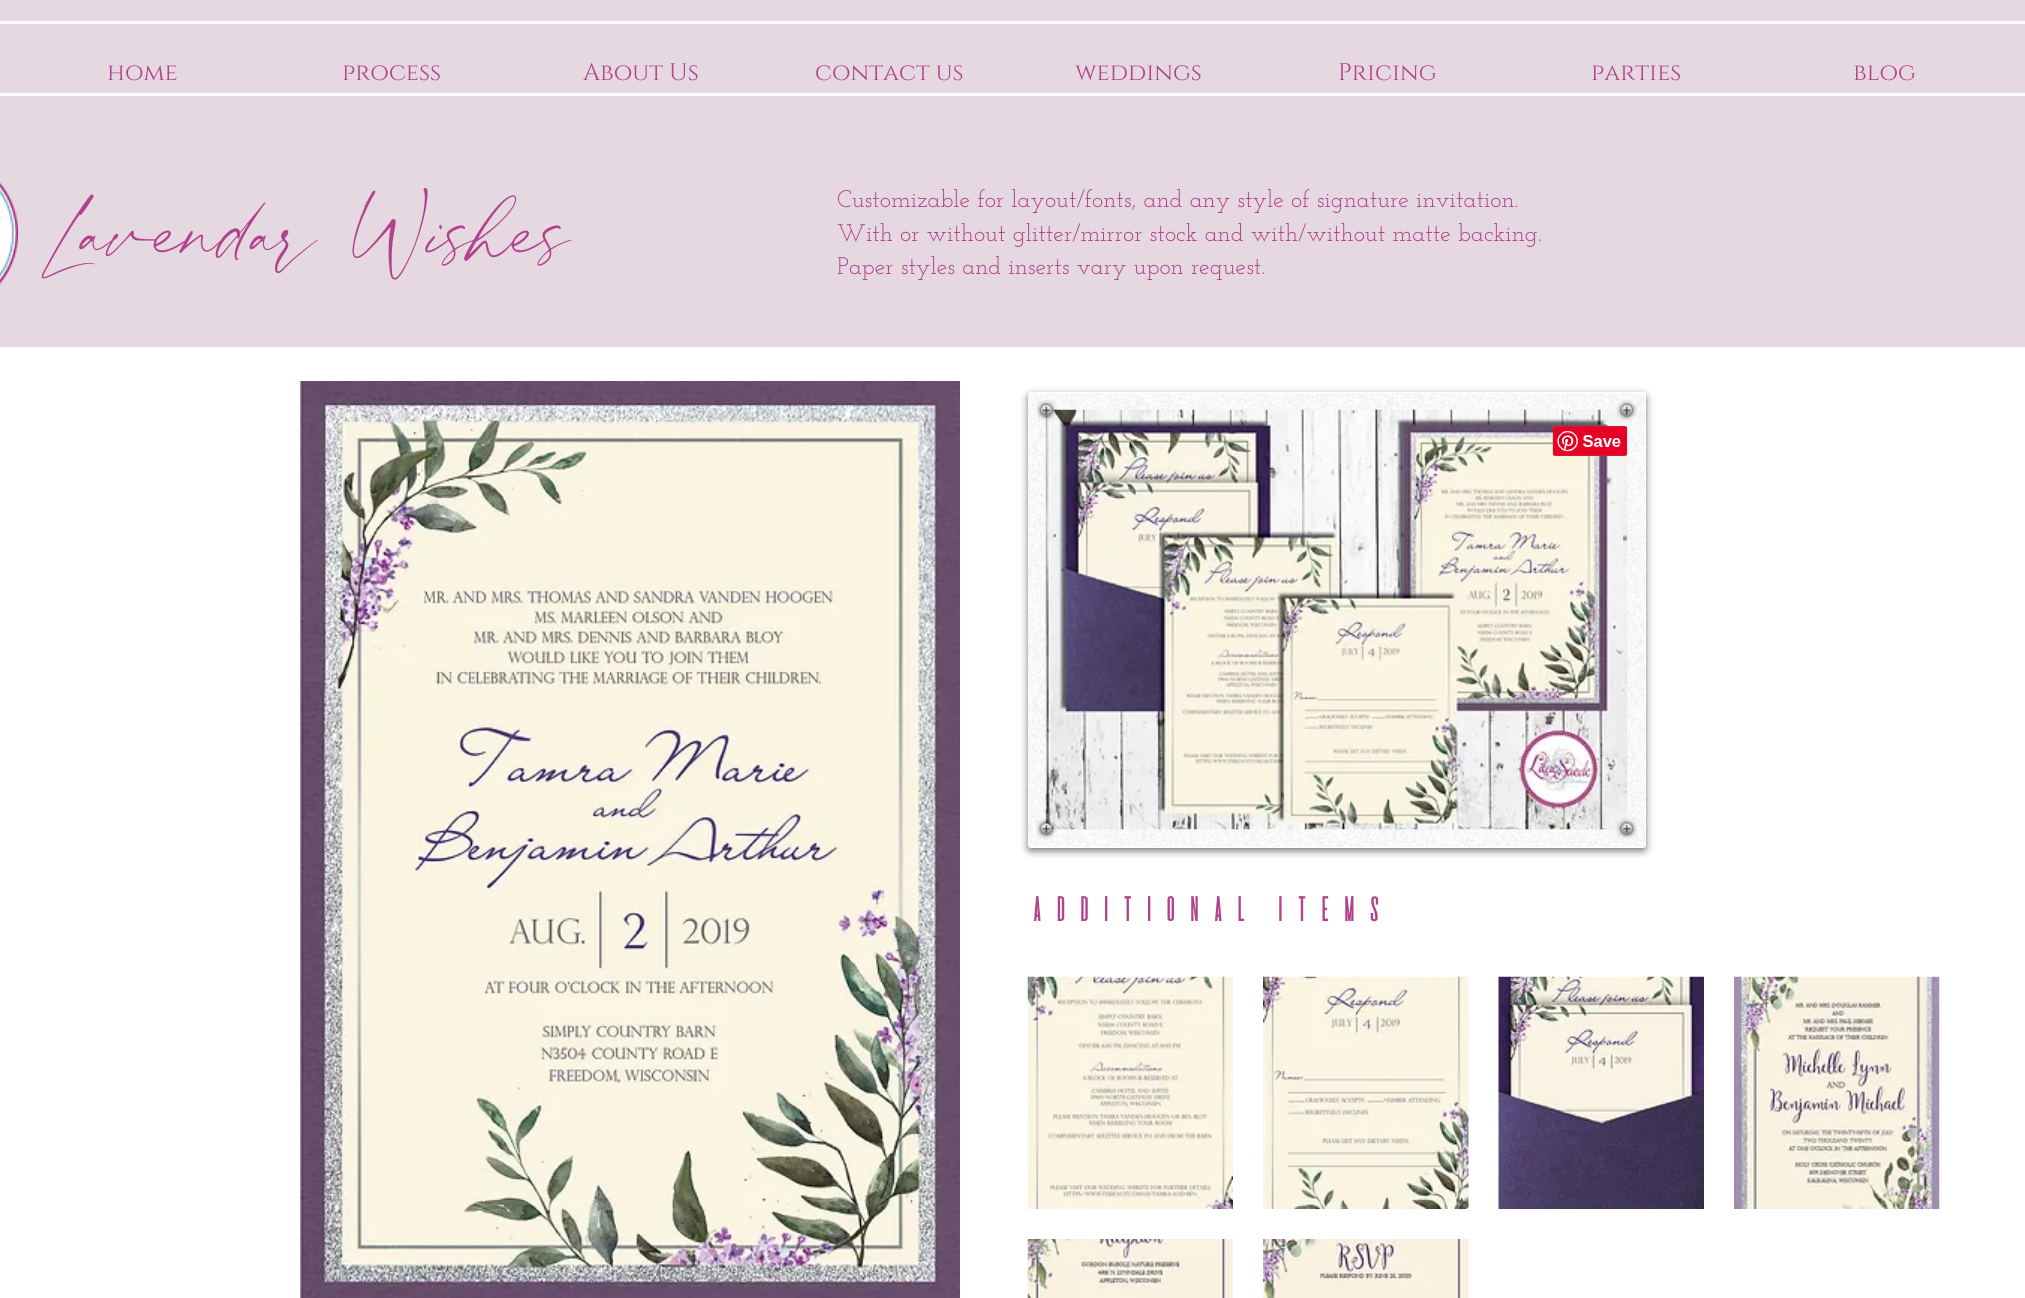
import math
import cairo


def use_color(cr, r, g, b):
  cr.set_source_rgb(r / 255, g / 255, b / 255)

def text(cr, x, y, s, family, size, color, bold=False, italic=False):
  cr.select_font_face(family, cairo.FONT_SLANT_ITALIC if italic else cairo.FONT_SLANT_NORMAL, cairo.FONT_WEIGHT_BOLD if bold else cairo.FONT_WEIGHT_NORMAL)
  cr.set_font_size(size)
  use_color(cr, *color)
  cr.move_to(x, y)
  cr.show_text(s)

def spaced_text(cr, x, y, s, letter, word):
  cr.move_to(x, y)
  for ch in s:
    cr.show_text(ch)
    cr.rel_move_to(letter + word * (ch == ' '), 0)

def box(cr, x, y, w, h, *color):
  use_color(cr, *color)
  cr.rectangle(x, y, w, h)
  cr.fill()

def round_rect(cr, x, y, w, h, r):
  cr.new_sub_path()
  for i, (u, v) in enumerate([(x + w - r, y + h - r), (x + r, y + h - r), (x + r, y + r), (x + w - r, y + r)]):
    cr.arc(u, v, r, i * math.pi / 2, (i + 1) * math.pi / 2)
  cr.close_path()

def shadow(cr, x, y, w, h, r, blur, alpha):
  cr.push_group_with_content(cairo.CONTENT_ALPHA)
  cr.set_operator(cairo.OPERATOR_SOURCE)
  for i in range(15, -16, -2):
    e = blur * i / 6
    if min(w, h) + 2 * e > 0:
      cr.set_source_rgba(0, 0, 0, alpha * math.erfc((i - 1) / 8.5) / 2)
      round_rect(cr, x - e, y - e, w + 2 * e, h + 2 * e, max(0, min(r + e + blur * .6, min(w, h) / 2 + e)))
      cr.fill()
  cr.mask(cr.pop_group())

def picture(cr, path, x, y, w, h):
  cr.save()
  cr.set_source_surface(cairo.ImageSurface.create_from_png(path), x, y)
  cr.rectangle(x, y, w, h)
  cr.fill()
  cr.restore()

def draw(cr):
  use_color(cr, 230, 216, 225)
  cr.paint()
  box(cr, 0, 21, 2025, 3, 255, 255, 255)
  box(cr, 0, 93, 2025, 3, 255, 255, 255)
  picture(cr, "img_01.png", 0, 181, 18, 104)
  picture(cr, "img_02.png", 41, 188, 531, 92)
  box(cr, 0, 347, 2025, 951, 255, 255, 255)
  picture(cr, "img_03.png", 300, 381, 660, 917)
  cr.save()
  cr.set_fill_rule(cairo.FILL_RULE_EVEN_ODD)
  cr.new_path()
  cr.move_to(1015, 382)
  cr.line_to(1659, 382)
  cr.line_to(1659, 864)
  cr.line_to(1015, 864)
  cr.close_path()
  cr.move_to(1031, 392)
  cr.line_to(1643, 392)
  cr.curve_to(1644.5, 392, 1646, 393.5, 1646, 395)
  cr.line_to(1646, 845)
  cr.curve_to(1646, 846.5, 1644.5, 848, 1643, 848)
  cr.line_to(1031, 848)
  cr.curve_to(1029.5, 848, 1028, 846.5, 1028, 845)
  cr.line_to(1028, 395)
  cr.curve_to(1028, 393.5, 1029.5, 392, 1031, 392)
  cr.close_path()
  cr.clip()
  use_color(cr, 0, 0, 0)
  shadow(cr, 1028, 395, 618, 456, 3, 4, 0.53)
  cr.restore()
  picture(cr, "img_04.png", 1028, 392, 617, 455)
  cr.set_source_rgba(1, 1, 1, 0.92)
  cr.new_path()
  cr.move_to(1030, 393)
  cr.curve_to(1029, 393, 1028, 394, 1028, 396)
  cr.line_to(1028, 395)
  cr.curve_to(1028, 393, 1029, 392, 1031, 392)
  cr.line_to(1643, 392)
  cr.curve_to(1645, 392, 1646, 393, 1646, 395)
  cr.line_to(1646, 396)
  cr.curve_to(1646, 394, 1644, 393, 1642, 393)
  cr.close_path()
  cr.fill()
  picture(cr, "img_07.png", 1045, 409, 583, 421)
  picture(cr, "img_05.png", 1036, 400, 21, 21)
  picture(cr, "img_06.png", 1616, 400, 21, 21)
  picture(cr, "img_08.png", 1036, 818, 21, 21)
  picture(cr, "img_09.png", 1616, 818, 21, 21)
  picture(cr, "img_10.png", 1552, 426, 76, 30)
  picture(cr, "img_11.png", 1027, 976, 206, 233)
  picture(cr, "img_12.png", 1263, 976, 206, 233)
  picture(cr, "img_13.png", 1498, 976, 206, 233)
  picture(cr, "img_14.png", 1734, 976, 206, 233)
  picture(cr, "img_15.png", 1027, 1239, 206, 59)
  picture(cr, "img_16.png", 1263, 1239, 206, 59)
  text(cr, 107, 80, "home", "Cinzel", 24, (176, 67, 140))
  text(cr, 342, 80, "process", "Cinzel", 24, (176, 67, 140))
  text(cr, 583, 80, "About Us", "Cinzel", 24, (176, 67, 140))
  text(cr, 815, 80, "contact us", "Cinzel", 24, (176, 67, 140))
  text(cr, 1075, 80, "weddings", "Cinzel", 24, (176, 67, 140))
  text(cr, 1338, 80, "Pricing", "Cinzel", 24, (176, 67, 140))
  text(cr, 1591, 80, "parties", "Cinzel", 24, (176, 67, 140))
  text(cr, 1853, 80, "blog", "Cinzel", 24, (176, 67, 140))
  text(cr, 837, 207, "Customizable for layout/fonts, and any style of signature invitation.", "Josefin Slab", 24, (176, 67, 140))
  text(cr, 837, 241, "With or without glitter/mirror stock and with/without matte backing.", "Josefin Slab", 24, (176, 67, 140))
  text(cr, 837, 274, "Paper styles and inserts vary upon request.", "Josefin Slab", 24, (176, 67, 140))
  cr.select_font_face("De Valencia", cairo.FONT_SLANT_NORMAL, cairo.FONT_WEIGHT_BOLD)
  cr.set_font_size(30)
  spaced_text(cr, 1028, 921, "Additional Items", 6, 0)


surface = cairo.ImageSurface(cairo.FORMAT_RGB24, 2025, 1298)
cr = cairo.Context(surface)
options = cairo.FontOptions()
options.set_hint_metrics(cairo.HINT_METRICS_OFF)
options.set_hint_style(cairo.HINT_STYLE_NONE)
cr.set_font_options(options)
cr.set_miter_limit(4)
draw(cr)
surface.write_to_png("out.png")
